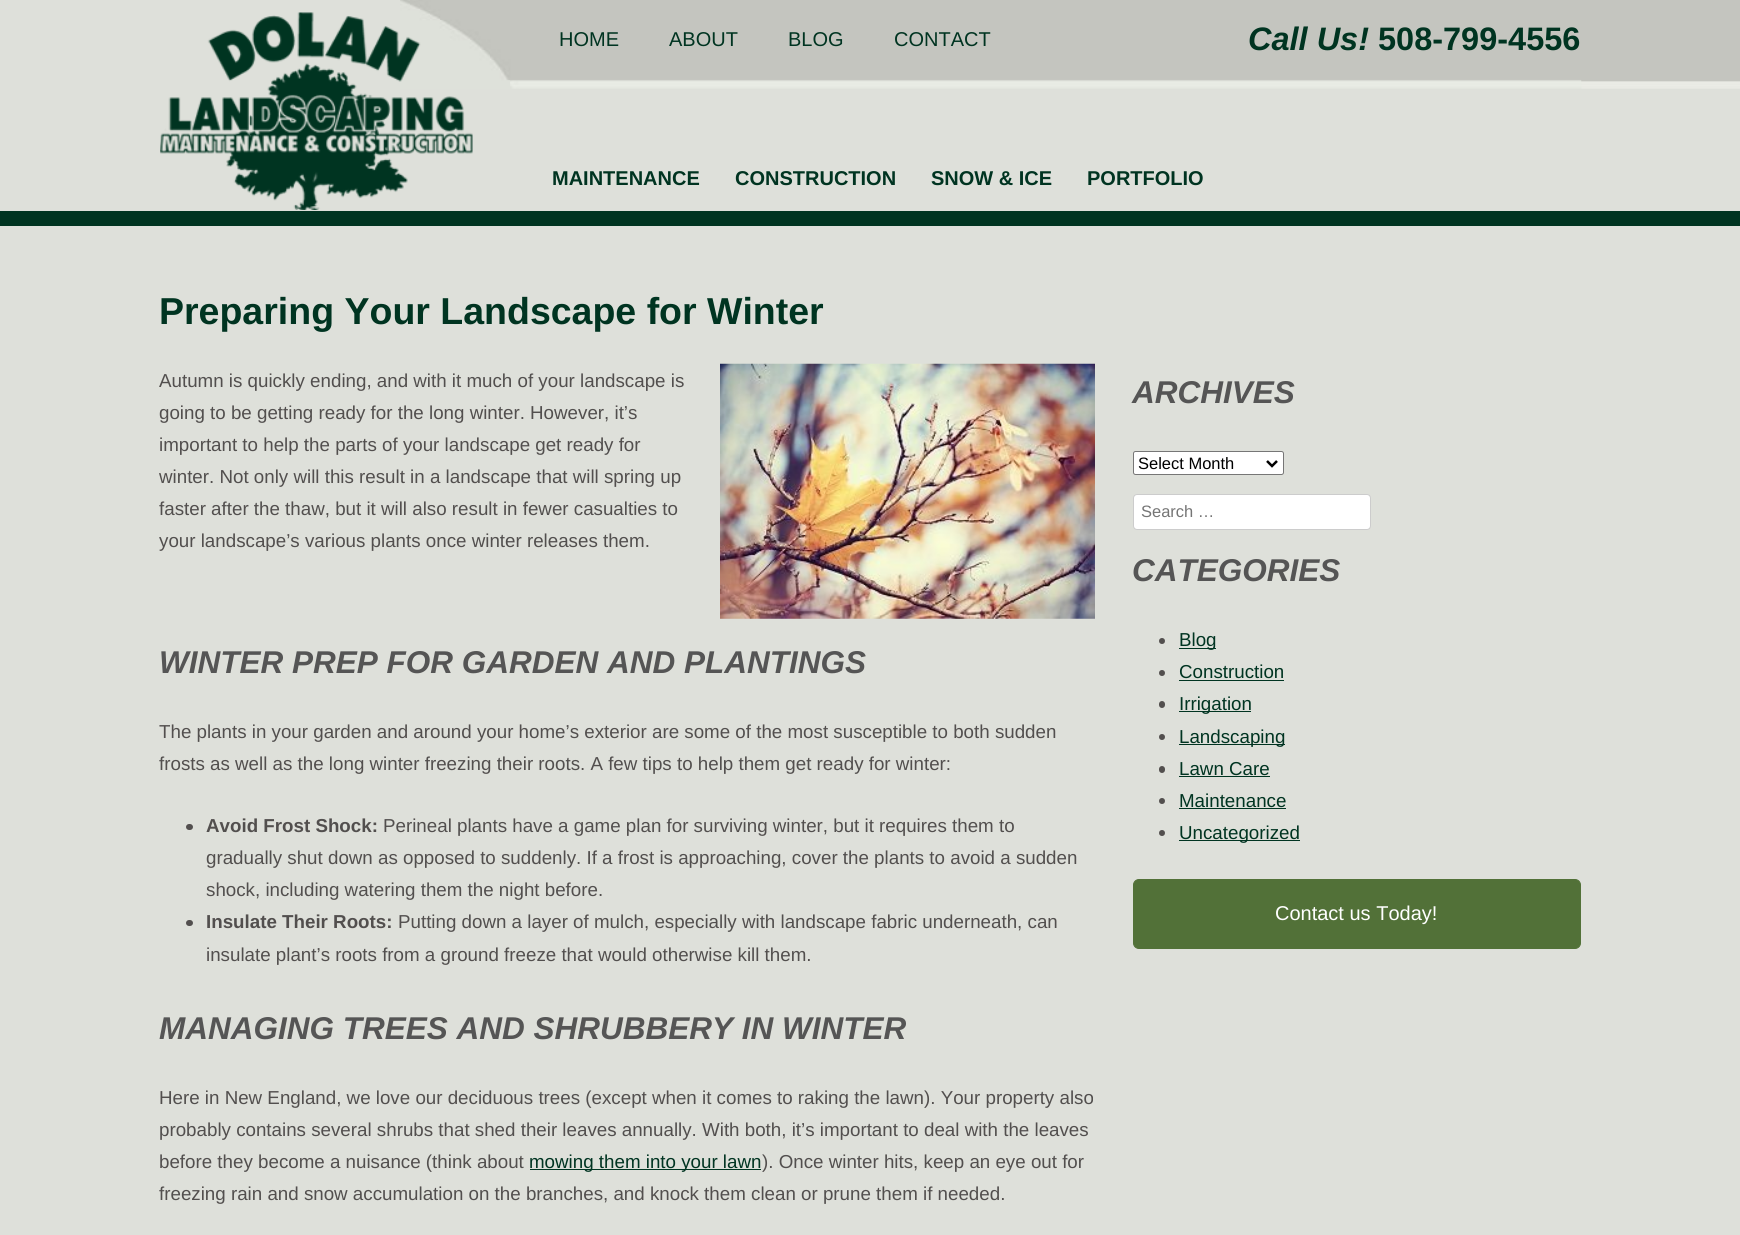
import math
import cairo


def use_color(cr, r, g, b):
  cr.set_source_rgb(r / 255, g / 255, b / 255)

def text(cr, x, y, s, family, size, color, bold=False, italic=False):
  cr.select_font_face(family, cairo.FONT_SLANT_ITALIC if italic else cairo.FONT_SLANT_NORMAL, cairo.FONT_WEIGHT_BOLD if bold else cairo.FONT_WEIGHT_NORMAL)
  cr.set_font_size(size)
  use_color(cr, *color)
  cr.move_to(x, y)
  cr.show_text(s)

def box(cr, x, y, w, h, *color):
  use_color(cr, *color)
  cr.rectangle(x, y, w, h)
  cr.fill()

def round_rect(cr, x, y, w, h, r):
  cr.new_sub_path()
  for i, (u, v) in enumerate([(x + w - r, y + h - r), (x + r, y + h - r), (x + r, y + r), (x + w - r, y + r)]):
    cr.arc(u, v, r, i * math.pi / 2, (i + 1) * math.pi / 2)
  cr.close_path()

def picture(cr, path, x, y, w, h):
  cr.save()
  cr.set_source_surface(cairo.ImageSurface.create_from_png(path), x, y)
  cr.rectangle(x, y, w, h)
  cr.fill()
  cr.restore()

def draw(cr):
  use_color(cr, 222, 224, 218)
  cr.paint()
  picture(cr, "img_01.png", 400, 0, 1340, 89)
  box(cr, 0, 211, 1740, 15, 0, 52, 33)
  picture(cr, "img_02.png", 160, 12, 313, 198)
  picture(cr, "img_03.png", 720, 363, 375, 256)
  use_color(cr, 82, 79, 78)
  round_rect(cr, 186, 824, 7, 6, 3)
  cr.fill()
  round_rect(cr, 186, 920, 7, 6, 3)
  cr.fill()
  box(cr, 530, 1169, 231, 1, 0, 52, 33)
  use_color(cr, 255, 255, 255)
  round_rect(cr, 1133.5, 451.5, 150, 23, 2)
  cr.fill_preserve()
  use_color(cr, 118, 118, 118)
  cr.set_line_width(1)
  cr.stroke()
  cr.new_path()
  cr.move_to(1267, 461)
  cr.line_to(1272, 466)
  cr.line_to(1277, 461)
  use_color(cr, 0, 0, 0)
  cr.set_line_width(2.5)
  cr.stroke()
  use_color(cr, 255, 255, 255)
  round_rect(cr, 1133.5, 494.5, 237, 35, 3.5)
  cr.fill_preserve()
  use_color(cr, 204, 204, 204)
  cr.set_line_width(1)
  cr.stroke()
  use_color(cr, 82, 79, 78)
  cr.arc(1162, 641, 3, 0, 2 * math.pi)
  cr.fill()
  box(cr, 1179, 648, 37, 1, 0, 52, 33)
  use_color(cr, 82, 79, 78)
  cr.arc(1162, 673, 3, 0, 2 * math.pi)
  cr.fill()
  box(cr, 1179, 680, 105, 1, 0, 52, 33)
  use_color(cr, 82, 79, 78)
  round_rect(cr, 1159, 701, 6, 7, 3)
  cr.fill()
  box(cr, 1179, 711, 72, 1, 0, 52, 33)
  use_color(cr, 82, 79, 78)
  cr.arc(1162, 737, 3, 0, 2 * math.pi)
  cr.fill()
  box(cr, 1179, 744, 106, 1, 0, 52, 33)
  use_color(cr, 82, 79, 78)
  round_rect(cr, 1159, 766, 6, 7, 3)
  cr.fill()
  box(cr, 1179, 776, 91, 1, 0, 52, 33)
  use_color(cr, 82, 79, 78)
  cr.arc(1162, 801, 3, 0, 2 * math.pi)
  cr.fill()
  box(cr, 1179, 808, 107, 1, 0, 52, 33)
  use_color(cr, 82, 79, 78)
  cr.arc(1162, 833, 3, 0, 2 * math.pi)
  cr.fill()
  box(cr, 1179, 840, 121, 1, 0, 52, 33)
  use_color(cr, 82, 113, 56)
  round_rect(cr, 1133.5, 879.5, 447, 69, 5.5)
  cr.fill_preserve()
  cr.stroke()
  text(cr, 559, 46, "HOME", "Liberation Sans", 20, (0, 52, 33))
  text(cr, 669, 46, "ABOUT", "Liberation Sans", 20, (0, 52, 33))
  text(cr, 788, 46, "BLOG", "Liberation Sans", 20, (0, 52, 33))
  text(cr, 894, 46, "CONTACT", "Liberation Sans", 20, (0, 52, 33))
  text(cr, 1248, 50, "Call Us!", "Liberation Sans", 32.5, (0, 52, 33), bold=True, italic=True)
  text(cr, 1378, 50, "508-799-4556", "Liberation Sans", 32.5, (0, 52, 33), bold=True)
  text(cr, 552, 185, "MAINTENANCE", "Liberation Sans", 20, (0, 52, 33), bold=True)
  text(cr, 735, 185, "CONSTRUCTION", "Liberation Sans", 20, (0, 52, 33), bold=True)
  text(cr, 931, 185, "SNOW & ICE", "Liberation Sans", 20, (0, 52, 33), bold=True)
  text(cr, 1087, 185, "PORTFOLIO", "Liberation Sans", 20, (0, 52, 33), bold=True)
  text(cr, 159, 324, "Preparing Your Landscape for Winter", "Liberation Sans", 37.5, (0, 52, 33), bold=True)
  text(cr, 159, 387, "Autumn is quickly ending, and with it much of your landscape is", "Liberation Sans", 18.75, (82, 79, 78))
  text(cr, 159, 419, "going to be getting ready for the long winter. However, it’s", "Liberation Sans", 18.75, (82, 79, 78))
  text(cr, 159, 451, "important to help the parts of your landscape get ready for", "Liberation Sans", 18.75, (82, 79, 78))
  text(cr, 159, 483, "winter. Not only will this result in a landscape that will spring up", "Liberation Sans", 18.75, (82, 79, 78))
  text(cr, 159, 515, "faster after the thaw, but it will also result in fewer casualties to", "Liberation Sans", 18.75, (82, 79, 78))
  text(cr, 159, 547, "your landscape’s various plants once winter releases them.", "Liberation Sans", 18.75, (82, 79, 78))
  text(cr, 159, 673, "WINTER PREP FOR GARDEN AND PLANTINGS", "Liberation Sans", 31.5, (85, 85, 85), bold=True, italic=True)
  text(cr, 159, 738, "The plants in your garden and around your home’s exterior are some of the most susceptible to both sudden", "Liberation Sans", 18.75, (82, 79, 78))
  text(cr, 159, 770, "frosts as well as the long winter freezing their roots. A few tips to help them get ready for winter:", "Liberation Sans", 18.75, (82, 79, 78))
  text(cr, 206, 832, "Avoid Frost Shock:", "Liberation Sans", 18.75, (82, 79, 78), bold=True)
  text(cr, 383, 832, "Perineal plants have a game plan for surviving winter, but it requires them to", "Liberation Sans", 18.75, (82, 79, 78))
  text(cr, 206, 864, "gradually shut down as opposed to suddenly. If a frost is approaching, cover the plants to avoid a sudden", "Liberation Sans", 18.75, (82, 79, 78))
  text(cr, 206, 896, "shock, including watering them the night before.", "Liberation Sans", 18.75, (82, 79, 78))
  text(cr, 206, 928, "Insulate Their Roots:", "Liberation Sans", 18.75, (82, 79, 78), bold=True)
  text(cr, 398, 928, "Putting down a layer of mulch, especially with landscape fabric underneath, can", "Liberation Sans", 18.75, (82, 79, 78))
  text(cr, 206, 961, "insulate plant’s roots from a ground freeze that would otherwise kill them.", "Liberation Sans", 18.75, (82, 79, 78))
  text(cr, 159, 1039, "MANAGING TREES AND SHRUBBERY IN WINTER", "Liberation Sans", 31.5, (85, 85, 85), bold=True, italic=True)
  text(cr, 159, 1104, "Here in New England, we love our deciduous trees (except when it comes to raking the lawn). Your property also", "Liberation Sans", 18.75, (82, 79, 78))
  text(cr, 159, 1136, "probably contains several shrubs that shed their leaves annually. With both, it’s important to deal with the leaves", "Liberation Sans", 18.75, (82, 79, 78))
  text(cr, 159, 1168, "before they become a nuisance (think about", "Liberation Sans", 18.75, (82, 79, 78))
  text(cr, 529, 1168, "mowing them into your lawn", "Liberation Sans", 18.75, (0, 52, 33))
  text(cr, 762, 1168, "). Once winter hits, keep an eye out for", "Liberation Sans", 18.75, (82, 79, 78))
  text(cr, 159, 1200, "freezing rain and snow accumulation on the branches, and knock them clean or prune them if needed.", "Liberation Sans", 18.75, (82, 79, 78))
  text(cr, 1132, 403, "ARCHIVES", "Liberation Sans", 31.5, (85, 85, 85), bold=True, italic=True)
  text(cr, 1138, 469, "Select Month", "Liberation Sans", 16.5, (0, 0, 0))
  text(cr, 1141, 517, "Search …", "Liberation Sans", 16.5, (117, 117, 117))
  text(cr, 1132, 581, "CATEGORIES", "Liberation Sans", 31.5, (85, 85, 85), bold=True, italic=True)
  text(cr, 1179, 646, "Blog", "Liberation Sans", 18.75, (0, 52, 33))
  text(cr, 1179, 678, "Construction", "Liberation Sans", 18.75, (0, 52, 33))
  text(cr, 1179, 710, "Irrigation", "Liberation Sans", 18.75, (0, 52, 33))
  text(cr, 1179, 743, "Landscaping", "Liberation Sans", 18.75, (0, 52, 33))
  text(cr, 1179, 775, "Lawn Care", "Liberation Sans", 18.75, (0, 52, 33))
  text(cr, 1179, 807, "Maintenance", "Liberation Sans", 18.75, (0, 52, 33))
  text(cr, 1179, 839, "Uncategorized", "Liberation Sans", 18.75, (0, 52, 33))
  text(cr, 1275, 920, "Contact us Today!", "Liberation Sans", 20, (255, 255, 255))


surface = cairo.ImageSurface(cairo.FORMAT_RGB24, 1740, 1235)
cr = cairo.Context(surface)
options = cairo.FontOptions()
options.set_hint_metrics(cairo.HINT_METRICS_OFF)
options.set_hint_style(cairo.HINT_STYLE_NONE)
cr.set_font_options(options)
cr.set_miter_limit(4)
draw(cr)
surface.write_to_png("out.png")
